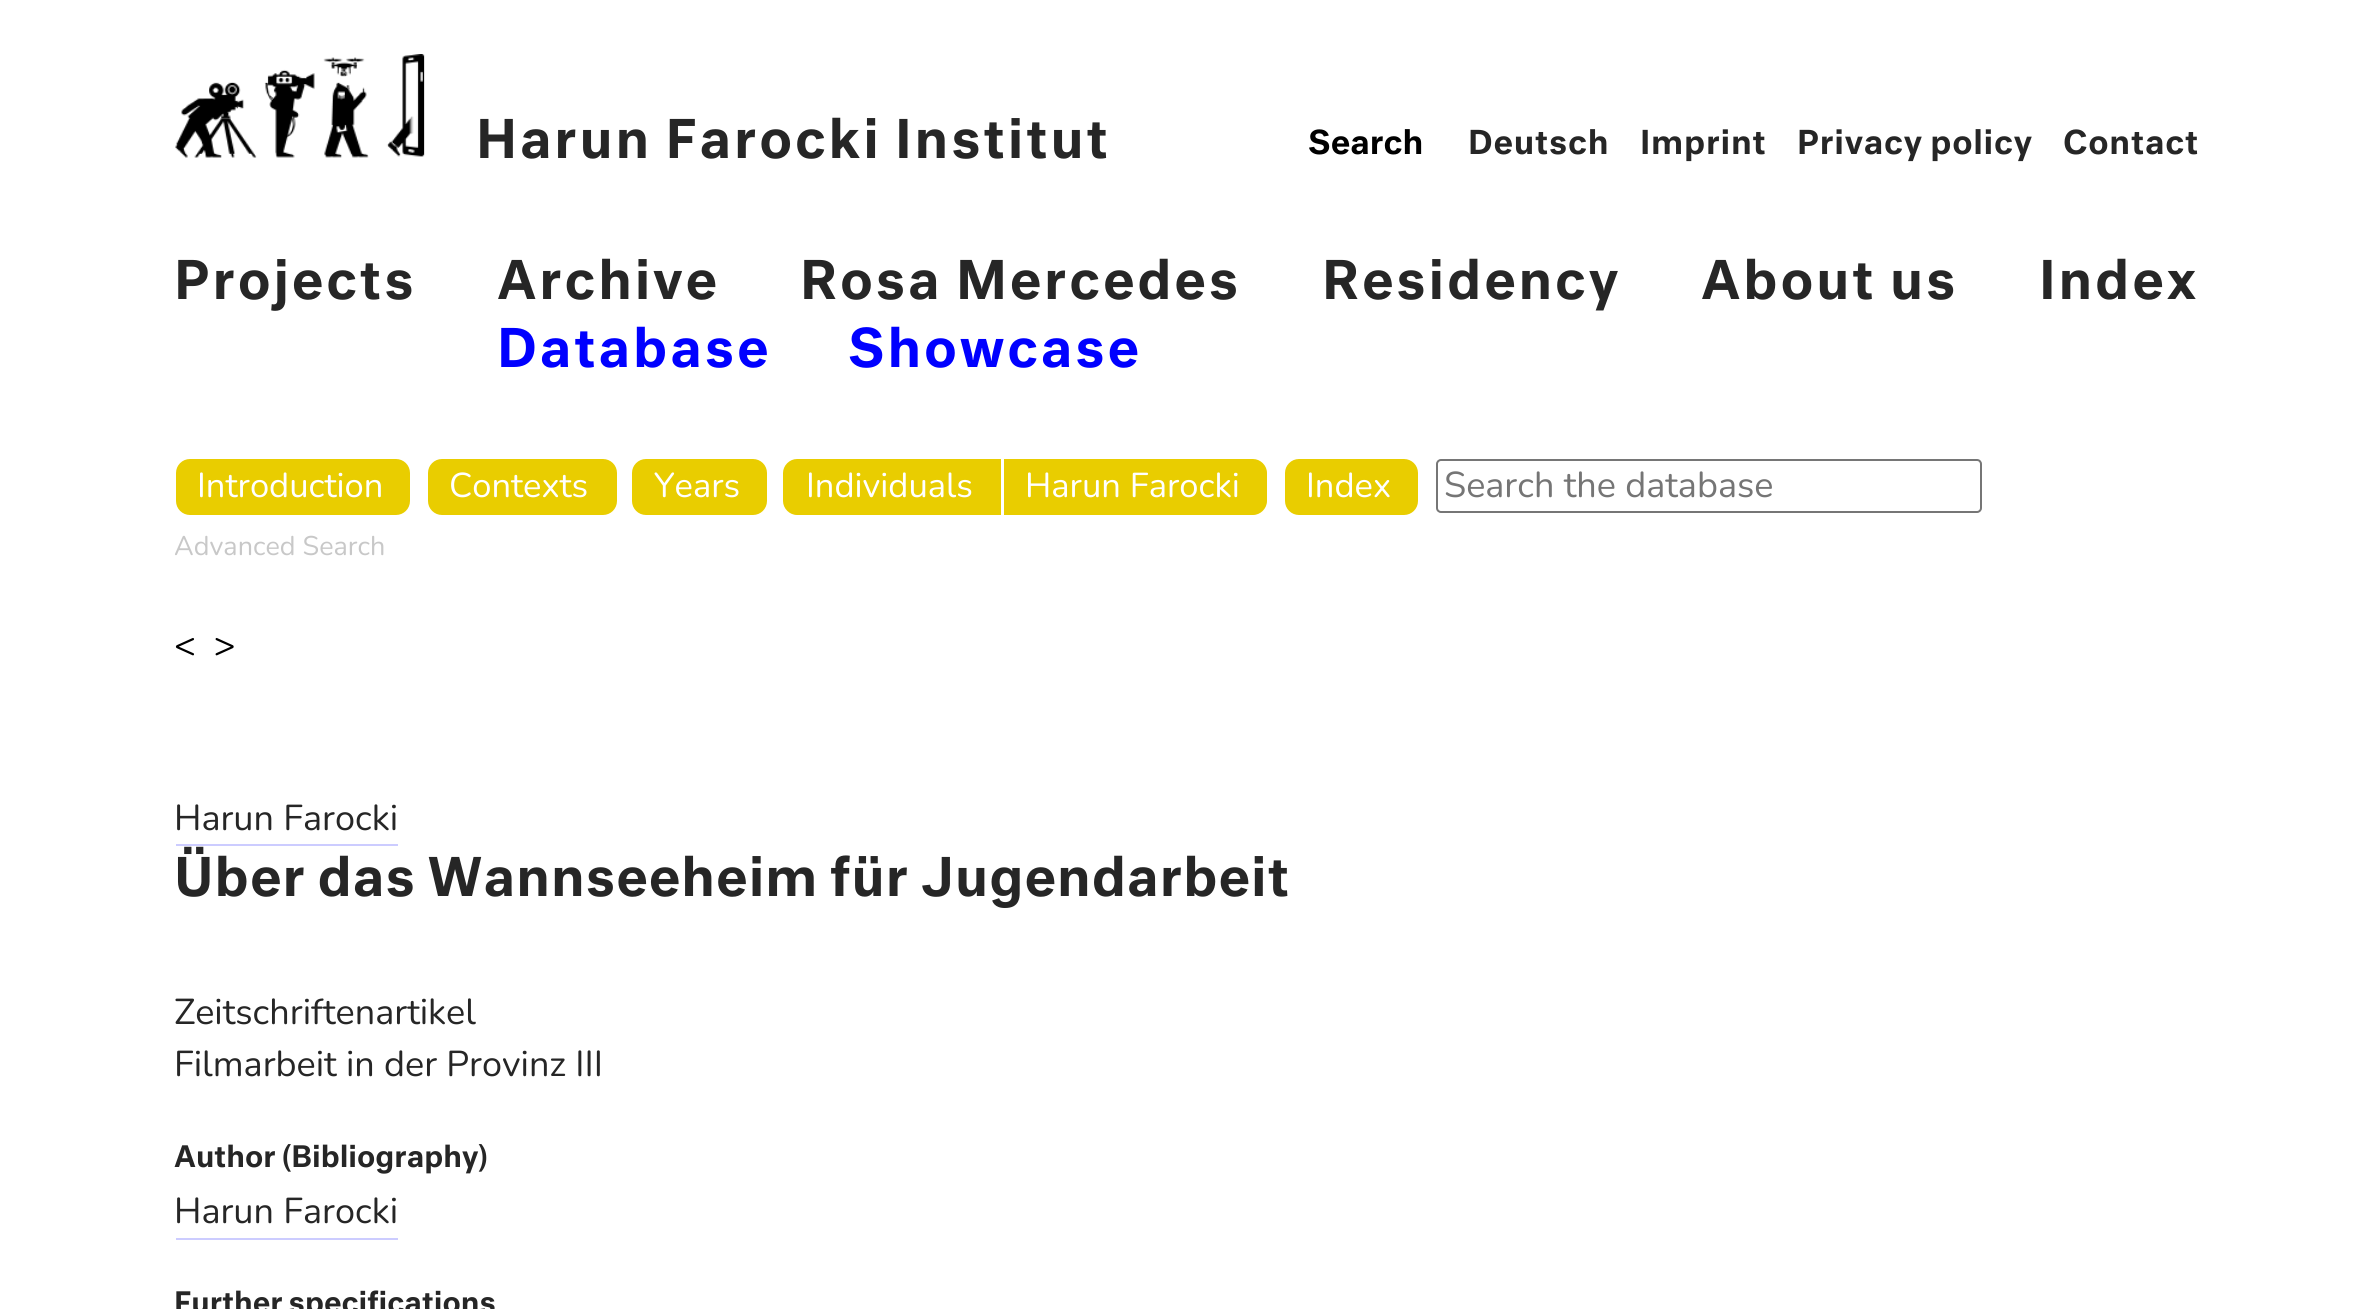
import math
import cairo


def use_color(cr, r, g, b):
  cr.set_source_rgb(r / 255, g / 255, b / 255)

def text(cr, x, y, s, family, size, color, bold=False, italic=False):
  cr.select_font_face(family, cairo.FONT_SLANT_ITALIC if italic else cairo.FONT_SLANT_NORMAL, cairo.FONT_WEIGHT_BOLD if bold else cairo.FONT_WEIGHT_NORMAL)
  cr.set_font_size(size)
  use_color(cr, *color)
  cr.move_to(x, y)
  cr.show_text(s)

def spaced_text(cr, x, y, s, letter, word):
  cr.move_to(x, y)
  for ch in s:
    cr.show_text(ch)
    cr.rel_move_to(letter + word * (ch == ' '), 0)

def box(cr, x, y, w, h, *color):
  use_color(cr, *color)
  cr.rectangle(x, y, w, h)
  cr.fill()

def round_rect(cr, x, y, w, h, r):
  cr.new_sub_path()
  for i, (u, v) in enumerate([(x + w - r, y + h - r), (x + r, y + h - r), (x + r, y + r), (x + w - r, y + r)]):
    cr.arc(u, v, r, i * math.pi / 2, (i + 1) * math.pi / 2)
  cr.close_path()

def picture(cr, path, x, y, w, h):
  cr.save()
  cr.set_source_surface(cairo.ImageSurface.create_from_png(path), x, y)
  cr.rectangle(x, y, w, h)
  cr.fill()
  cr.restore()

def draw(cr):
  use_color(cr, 255, 255, 255)
  cr.paint()
  picture(cr, "img_01.png", 175, 54, 250, 104)
  use_color(cr, 233, 205, 0)
  round_rect(cr, 176, 459, 234, 56, 14)
  cr.fill()
  round_rect(cr, 428, 459, 189, 56, 14)
  cr.fill()
  round_rect(cr, 632, 459, 135, 56, 14)
  cr.fill()
  cr.new_path()
  cr.move_to(797, 459)
  cr.line_to(1001, 459)
  cr.line_to(1001, 515)
  cr.line_to(797, 515)
  cr.curve_to(789.5, 515, 783, 508.5, 783, 501)
  cr.line_to(783, 473)
  cr.curve_to(783, 465.5, 789.5, 459, 797, 459)
  cr.close_path()
  cr.fill()
  cr.new_path()
  cr.move_to(1004, 459)
  cr.line_to(1253, 459)
  cr.curve_to(1260.5, 459, 1267, 465.5, 1267, 473)
  cr.line_to(1267, 501)
  cr.curve_to(1267, 508.5, 1260.5, 515, 1253, 515)
  cr.line_to(1004, 515)
  cr.close_path()
  cr.fill()
  round_rect(cr, 1285, 459, 133, 56, 14)
  cr.fill()
  round_rect(cr, 1437, 460, 544, 52, 4)
  use_color(cr, 118, 118, 118)
  cr.stroke()
  box(cr, 176, 844, 222, 2, 204, 204, 255)
  box(cr, 176, 1238, 222, 2, 204, 204, 255)
  cr.select_font_face("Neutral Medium")
  cr.set_font_size(51.75)
  use_color(cr, 38, 38, 38)
  spaced_text(cr, 476, 158, "Harun Farocki Institut", 2.85, 0)
  text(cr, 1308, 154, "Search", "Neutral Medium", 32, (0, 0, 0))
  use_color(cr, 38, 38, 38)
  spaced_text(cr, 1468, 154, "Deutsch", 0.75, 0)
  spaced_text(cr, 1640, 154, "Imprint", 0.75, 0)
  spaced_text(cr, 1797, 154, "Privacy policy", 0.75, 0)
  spaced_text(cr, 2063, 154, "Contact", 0.75, 0)
  cr.set_font_size(51.75)
  spaced_text(cr, 497, 299, "Archive", 2.85, 0)
  use_color(cr, 0, 0, 255)
  spaced_text(cr, 497, 367, "Database", 2.85, 0)
  spaced_text(cr, 848, 367, "Showcase", 2.85, 0)
  use_color(cr, 38, 38, 38)
  spaced_text(cr, 174, 299, "Projects", 2.85, 0)
  spaced_text(cr, 800, 299, "Rosa Mercedes", 2.85, 0)
  spaced_text(cr, 1322, 299, "Residency", 2.85, 0)
  spaced_text(cr, 1701, 299, "About us", 2.85, 0)
  spaced_text(cr, 2039, 299, "Index", 2.85, 0)
  text(cr, 197, 497, "Introduction", "Nunito", 34.5, (255, 255, 255))
  text(cr, 449, 497, "Contexts", "Nunito", 34.5, (255, 255, 255))
  text(cr, 654, 497, "Years", "Nunito", 34.5, (255, 255, 255))
  text(cr, 806, 497, "Individuals", "Nunito", 34.5, (255, 255, 255))
  text(cr, 1025, 497, "Harun Farocki", "Nunito", 34.5, (255, 255, 255))
  text(cr, 1306, 497, "Index", "Nunito", 34.5, (255, 255, 255))
  text(cr, 1444, 497, "Search the database", "Nunito", 36, (117, 117, 117))
  text(cr, 174, 555, "Advanced Search", "Nunito", 27, (200, 200, 200))
  text(cr, 174, 657, "<", "Nunito", 36, (0, 0, 0))
  text(cr, 214, 657, ">", "Nunito", 36, (0, 0, 0))
  text(cr, 174, 830, "Harun Farocki", "Nunito", 36, (38, 38, 38))
  cr.select_font_face("Neutral Medium")
  cr.set_font_size(51.75)
  spaced_text(cr, 174, 896, "Über das Wannseeheim für Jugendarbeit", 1.05, 0)
  text(cr, 174, 1024, "Zeitschriftenartikel", "Nunito", 36, (38, 38, 38))
  text(cr, 174, 1076, "Filmarbeit in der Provinz III", "Nunito", 36, (38, 38, 38))
  text(cr, 174, 1167, "Author (Bibliography)", "Neutral Medium", 28.75, (38, 38, 38))
  text(cr, 174, 1223, "Harun Farocki", "Nunito", 36, (38, 38, 38))
  text(cr, 174, 1313, "Further specifications", "Neutral Medium", 28.75, (38, 38, 38))


surface = cairo.ImageSurface(cairo.FORMAT_RGB24, 2372, 1309)
cr = cairo.Context(surface)
options = cairo.FontOptions()
options.set_hint_metrics(cairo.HINT_METRICS_OFF)
options.set_hint_style(cairo.HINT_STYLE_NONE)
cr.set_font_options(options)
cr.set_miter_limit(4)
draw(cr)
surface.write_to_png("out.png")
